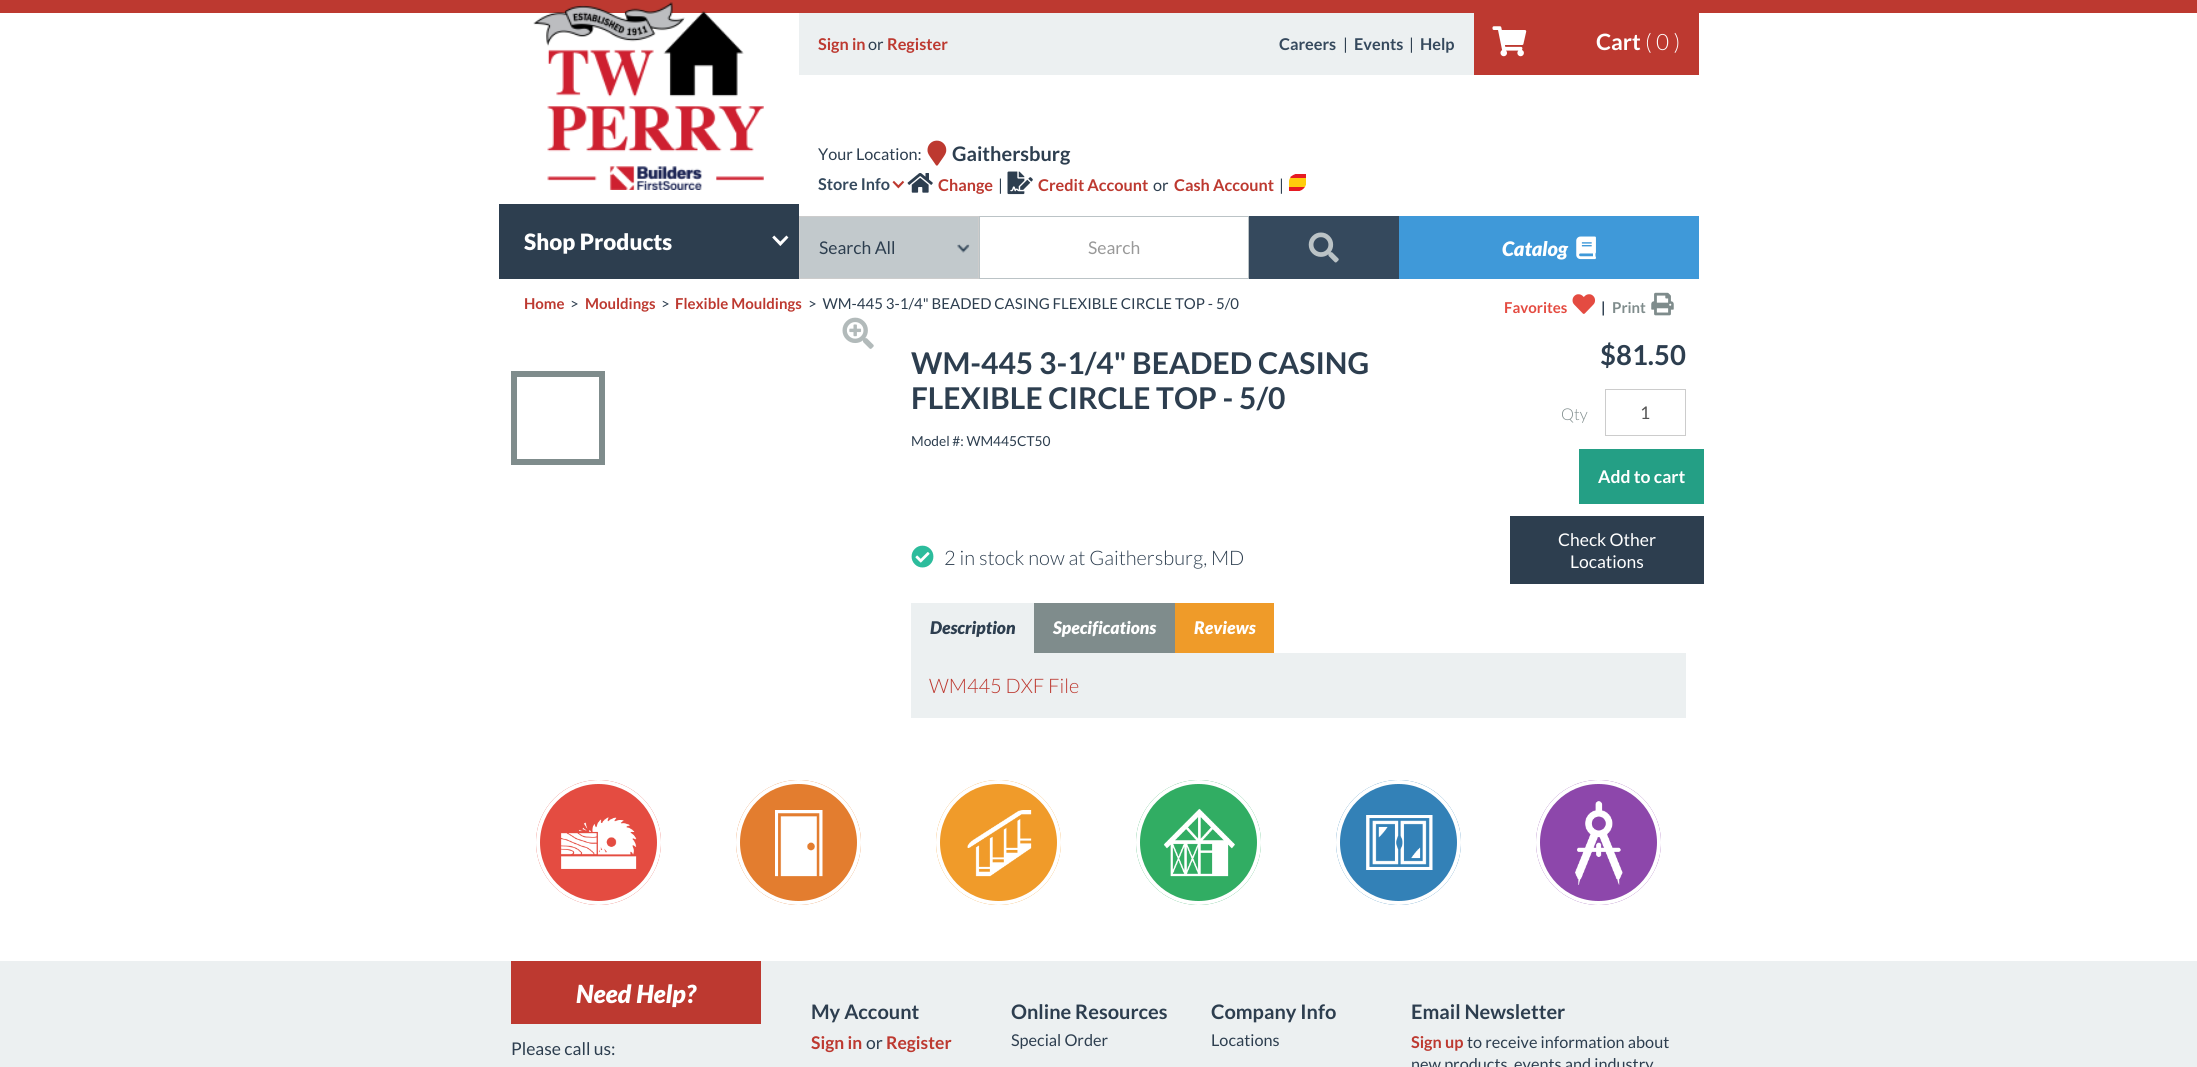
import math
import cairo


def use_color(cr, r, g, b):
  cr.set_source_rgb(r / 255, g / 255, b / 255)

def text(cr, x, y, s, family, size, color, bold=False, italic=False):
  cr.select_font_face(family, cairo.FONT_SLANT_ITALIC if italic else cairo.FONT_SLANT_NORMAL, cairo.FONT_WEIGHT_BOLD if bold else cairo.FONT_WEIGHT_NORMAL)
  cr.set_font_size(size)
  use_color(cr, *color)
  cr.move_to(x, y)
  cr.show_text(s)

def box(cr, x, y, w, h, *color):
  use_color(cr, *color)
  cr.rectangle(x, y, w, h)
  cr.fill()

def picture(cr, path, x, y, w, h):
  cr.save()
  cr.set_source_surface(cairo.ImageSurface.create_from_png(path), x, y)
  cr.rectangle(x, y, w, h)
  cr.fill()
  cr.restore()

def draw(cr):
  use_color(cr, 255, 255, 255)
  cr.paint()
  box(cr, 0, 0, 2197, 13, 189, 57, 48)
  picture(cr, "img_01.png", 533, 2, 231, 188)
  box(cr, 499, 204, 300, 75, 45, 62, 79)
  picture(cr, "img_02.png", 772, 235, 17, 11)
  box(cr, 799, 13, 675, 62, 236, 240, 241)
  box(cr, 1474, 13, 225, 62, 189, 57, 48)
  picture(cr, "img_03.png", 1492, 26, 35, 31)
  picture(cr, "img_04.png", 927, 140, 20, 26)
  picture(cr, "img_05.png", 892, 180, 13, 9)
  picture(cr, "img_06.png", 907, 173, 26, 20)
  picture(cr, "img_07.png", 1007, 171, 26, 24)
  picture(cr, "img_08.png", 1289, 174, 17, 17)
  box(cr, 800, 217, 178, 61, 194, 201, 204)
  picture(cr, "img_09.png", 957, 244, 13, 9)
  cr.rectangle(799.5, 216.5, 179, 62)
  use_color(cr, 204, 204, 204)
  cr.set_line_width(1)
  cr.stroke()
  cr.rectangle(979.5, 216.5, 269, 62)
  use_color(cr, 187, 195, 198)
  cr.stroke()
  box(cr, 1249, 216, 150, 63, 53, 73, 93)
  picture(cr, "img_10.png", 1308, 232, 31, 31)
  box(cr, 1399, 216, 300, 63, 63, 153, 217)
  picture(cr, "img_11.png", 1576, 236, 20, 24)
  picture(cr, "img_12.png", 1572, 294, 24, 20)
  picture(cr, "img_13.png", 1651, 292, 23, 24)
  picture(cr, "img_14.png", 842, 317, 32, 32)
  cr.rectangle(514, 374, 88, 88)
  use_color(cr, 127, 140, 140)
  cr.set_line_width(6)
  cr.stroke()
  cr.rectangle(1605.5, 389.5, 80, 46)
  use_color(cr, 204, 204, 204)
  cr.set_line_width(1)
  cr.stroke()
  box(cr, 1579, 449, 125, 55, 36, 159, 133)
  box(cr, 1510, 516, 194, 68, 45, 62, 79)
  picture(cr, "img_15.png", 911, 545, 23, 23)
  box(cr, 911, 603, 123, 50, 236, 240, 241)
  box(cr, 1034, 603, 141, 50, 127, 140, 140)
  box(cr, 1175, 603, 99, 50, 239, 155, 41)
  box(cr, 911, 653, 775, 65, 236, 240, 241)
  use_color(cr, 228, 76, 65)
  cr.arc(598.5, 842.5, 62.5, 0, 2 * math.pi)
  cr.fill()
  picture(cr, "img_16.png", 561, 817, 76, 52)
  cr.arc(598.5, 842.5, 60.5, 0, 2 * math.pi)
  use_color(cr, 255, 255, 255)
  cr.set_line_width(4)
  cr.stroke()
  use_color(cr, 227, 125, 47)
  cr.arc(798.5, 842.5, 62.5, 0, 2 * math.pi)
  cr.fill()
  picture(cr, "img_17.png", 775, 810, 48, 67)
  cr.arc(798.5, 842.5, 60.5, 0, 2 * math.pi)
  use_color(cr, 255, 255, 255)
  cr.stroke()
  use_color(cr, 240, 155, 42)
  cr.arc(998.5, 842.5, 62.5, 0, 2 * math.pi)
  cr.fill()
  picture(cr, "img_18.png", 967, 810, 65, 67)
  cr.arc(998.5, 842.5, 60.5, 0, 2 * math.pi)
  use_color(cr, 255, 255, 255)
  cr.stroke()
  use_color(cr, 49, 173, 99)
  cr.arc(1198.5, 842.5, 62.5, 0, 2 * math.pi)
  cr.fill()
  picture(cr, "img_19.png", 1163, 808, 72, 69)
  cr.arc(1198.5, 842.5, 60.5, 0, 2 * math.pi)
  use_color(cr, 255, 255, 255)
  cr.stroke()
  use_color(cr, 51, 129, 183)
  cr.arc(1398.5, 842.5, 62.5, 0, 2 * math.pi)
  cr.fill()
  picture(cr, "img_20.png", 1366, 815, 67, 55)
  cr.arc(1398.5, 842.5, 60.5, 0, 2 * math.pi)
  use_color(cr, 255, 255, 255)
  cr.stroke()
  use_color(cr, 141, 71, 171)
  cr.arc(1598.5, 842.5, 62.5, 0, 2 * math.pi)
  cr.fill()
  picture(cr, "img_21.png", 1575, 801, 48, 84)
  cr.arc(1598.5, 842.5, 60.5, 0, 2 * math.pi)
  use_color(cr, 255, 255, 255)
  cr.stroke()
  box(cr, 0, 961, 2197, 106, 236, 240, 241)
  box(cr, 511, 961, 250, 63, 189, 57, 48)
  text(cr, 524, 250, "Shop Products", "Lato Black", 22.5, (255, 255, 255))
  text(cr, 818, 50, "Sign in", "Lato", 16.25, (189, 57, 48), bold=True)
  text(cr, 868, 50, "or", "Lato", 16.25, (45, 62, 79))
  text(cr, 887, 50, "Register", "Lato", 16.25, (189, 57, 48), bold=True)
  text(cr, 1279, 50, "Careers", "Lato", 16.25, (53, 73, 93), bold=True)
  text(cr, 1343, 50, "|", "Lato", 16.25, (45, 62, 79))
  text(cr, 1354, 50, "Events", "Lato", 16.25, (53, 73, 93), bold=True)
  text(cr, 1409, 50, "|", "Lato", 16.25, (45, 62, 79))
  text(cr, 1420, 50, "Help", "Lato", 16.25, (53, 73, 93), bold=True)
  text(cr, 1596, 50, "Cart", "Lato", 22.5, (255, 255, 255), bold=True)
  text(cr, 1645, 50, "( 0 )", "Lato Light", 22.5, (255, 255, 255))
  text(cr, 818, 160, "Your Location:", "Lato", 16.25, (45, 62, 79))
  text(cr, 952, 161, "Gaithersburg", "Lato", 20, (45, 62, 79), bold=True)
  text(cr, 818, 190, "Store Info", "Lato", 16.25, (53, 73, 93), bold=True)
  text(cr, 938, 191, "Change", "Lato", 16.25, (189, 57, 48), bold=True)
  text(cr, 998, 191, "|", "Lato", 16.25, (45, 62, 79))
  text(cr, 1038, 191, "Credit Account", "Lato", 16.25, (189, 57, 48), bold=True)
  text(cr, 1153, 191, "or", "Lato", 16.25, (45, 62, 79))
  text(cr, 1174, 191, "Cash Account", "Lato", 16.25, (189, 57, 48), bold=True)
  text(cr, 1279, 191, "|", "Lato", 16.25, (45, 62, 79))
  text(cr, 819, 254, "Search All", "Lato", 17.5, (45, 62, 79))
  text(cr, 1088, 254, "Search", "Lato", 17.5, (153, 153, 153))
  text(cr, 1502, 256, "Catalog", "Lato Black", 20, (255, 255, 255), italic=True)
  text(cr, 524, 309, "Home", "Lato", 15, (189, 57, 48), bold=True)
  text(cr, 570, 309, ">", "Lato", 15, (45, 62, 79))
  text(cr, 585, 309, "Mouldings", "Lato", 15, (189, 57, 48), bold=True)
  text(cr, 661, 309, ">", "Lato", 15, (45, 62, 79))
  text(cr, 675, 309, "Flexible Mouldings", "Lato", 15, (189, 57, 48), bold=True)
  text(cr, 808, 309, ">  WM-445 3-1/4\" BEADED CASING FLEXIBLE CIRCLE TOP - 5/0", "Lato", 15, (45, 62, 79))
  text(cr, 1504, 313, "Favorites", "Lato", 15, (228, 75, 65), bold=True)
  text(cr, 1601, 313, "|", "Lato", 15, (45, 62, 79), bold=True)
  text(cr, 1612, 313, "Print", "Lato", 15, (127, 140, 140), bold=True)
  text(cr, 911, 374, "WM-445 3-1/4\" BEADED CASING", "Lato", 30, (45, 62, 79), bold=True)
  text(cr, 911, 409, "FLEXIBLE CIRCLE TOP - 5/0", "Lato", 30, (45, 62, 79), bold=True)
  text(cr, 911, 446, "Model #: WM445CT50", "Lato", 13.75, (45, 62, 79))
  text(cr, 1600, 365, "$81.50", "Lato", 27.5, (45, 62, 79), bold=True)
  text(cr, 1561, 420, "Qty", "Lato Light", 16.25, (127, 140, 140))
  text(cr, 1640, 419, "1", "Lato", 17.5, (85, 85, 85))
  text(cr, 1598, 483, "Add to cart", "Lato", 17.5, (255, 255, 255), bold=True)
  text(cr, 1558, 546, "Check Other", "Lato", 17.5, (255, 255, 255))
  text(cr, 1570, 568, "Locations", "Lato", 17.5, (255, 255, 255))
  text(cr, 944, 565, "2 in stock now at Gaithersburg, MD", "Lato Light", 20, (45, 62, 79))
  text(cr, 930, 634, "Description", "Lato Black", 17.5, (45, 62, 79), italic=True)
  text(cr, 1053, 634, "Specifications", "Lato Black", 17.5, (255, 255, 255), italic=True)
  text(cr, 1194, 634, "Reviews", "Lato Black", 17.5, (255, 255, 255), italic=True)
  text(cr, 929, 693, "WM445 DXF File", "Lato Light", 20, (189, 57, 48))
  text(cr, 576, 1003, "Need Help?", "Lato Black", 25, (255, 255, 255), italic=True)
  text(cr, 511, 1055, "Please call us:", "Lato", 17.5, (45, 62, 79))
  text(cr, 811, 1019, "My Account", "Lato", 20, (45, 62, 79), bold=True)
  text(cr, 811, 1049, "Sign in", "Lato", 17.5, (189, 57, 48), bold=True)
  text(cr, 866, 1049, "or", "Lato", 17.5, (45, 62, 79))
  text(cr, 886, 1049, "Register", "Lato", 17.5, (189, 57, 48), bold=True)
  text(cr, 1011, 1019, "Online Resources", "Lato", 20, (45, 62, 79), bold=True)
  text(cr, 1011, 1046, "Special Order", "Lato", 16.25, (45, 62, 79))
  text(cr, 1211, 1019, "Company Info", "Lato", 20, (45, 62, 79), bold=True)
  text(cr, 1211, 1046, "Locations", "Lato", 16.25, (45, 62, 79))
  text(cr, 1411, 1019, "Email Newsletter", "Lato", 20, (45, 62, 79), bold=True)
  text(cr, 1411, 1048, "Sign up", "Lato", 16.25, (189, 57, 48), bold=True)
  text(cr, 1467, 1048, "to receive information about", "Lato", 16.25, (45, 62, 79))
  text(cr, 1411, 1070, "new products, events and industry", "Lato", 16.25, (45, 62, 79))


surface = cairo.ImageSurface(cairo.FORMAT_RGB24, 2197, 1067)
cr = cairo.Context(surface)
options = cairo.FontOptions()
options.set_hint_metrics(cairo.HINT_METRICS_OFF)
options.set_hint_style(cairo.HINT_STYLE_NONE)
cr.set_font_options(options)
cr.set_miter_limit(4)
draw(cr)
surface.write_to_png("out.png")
